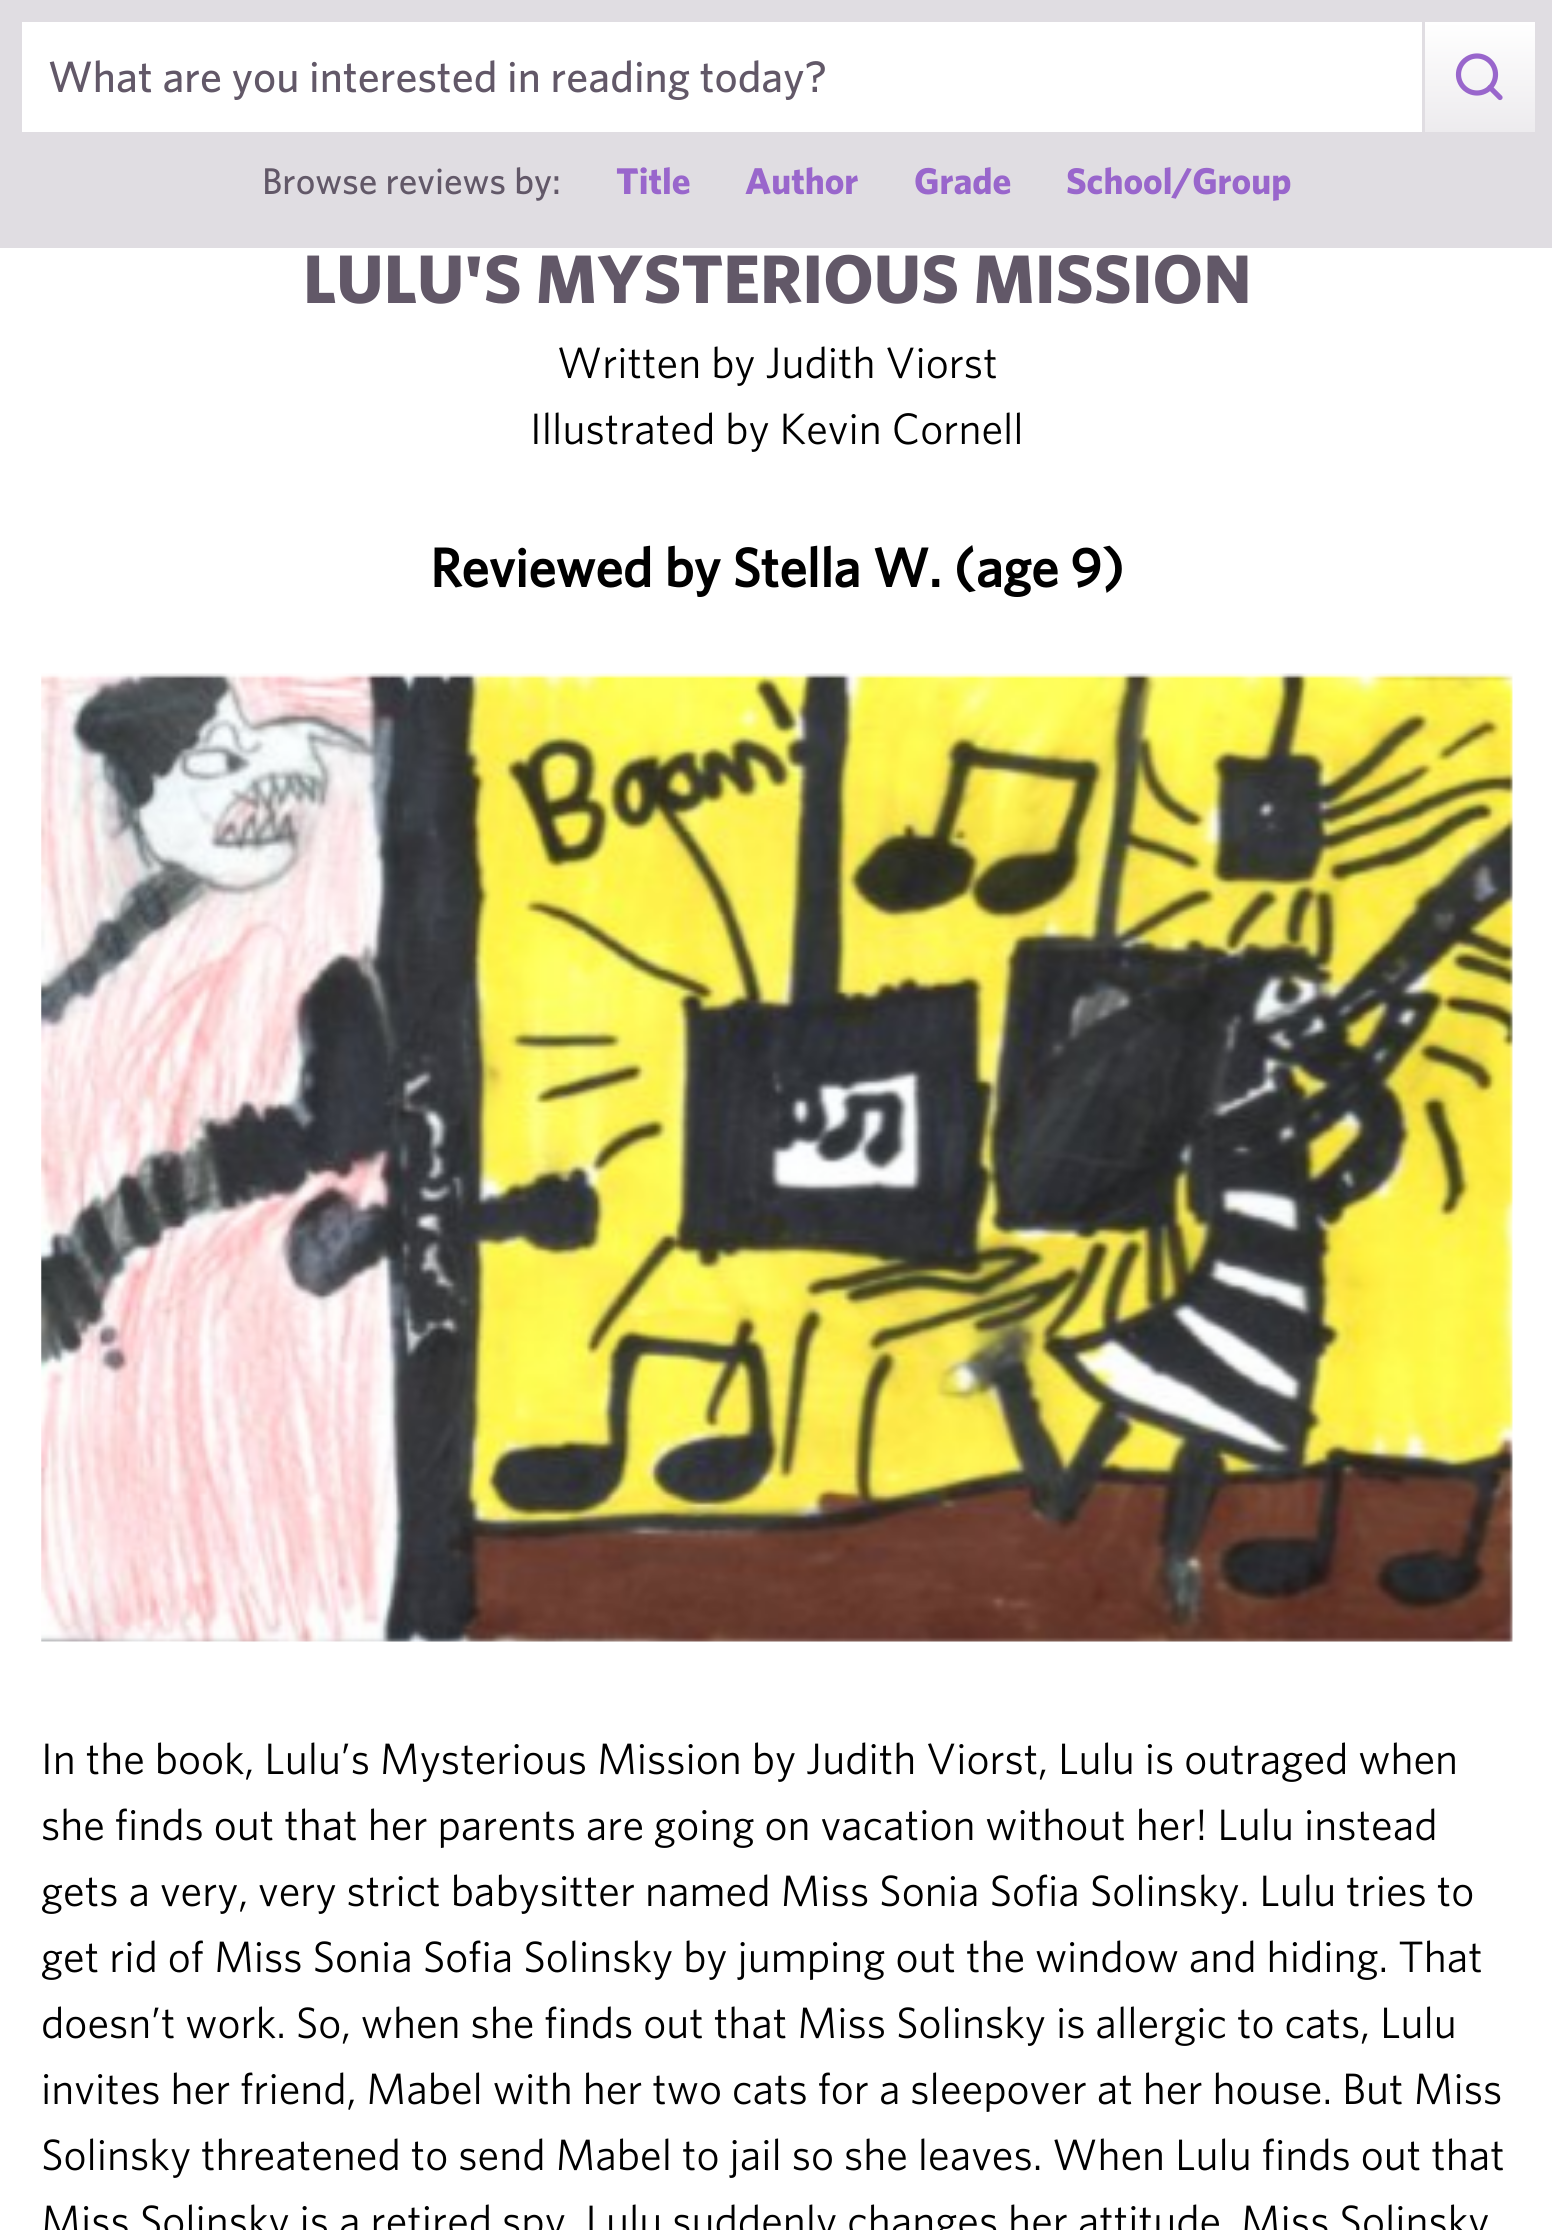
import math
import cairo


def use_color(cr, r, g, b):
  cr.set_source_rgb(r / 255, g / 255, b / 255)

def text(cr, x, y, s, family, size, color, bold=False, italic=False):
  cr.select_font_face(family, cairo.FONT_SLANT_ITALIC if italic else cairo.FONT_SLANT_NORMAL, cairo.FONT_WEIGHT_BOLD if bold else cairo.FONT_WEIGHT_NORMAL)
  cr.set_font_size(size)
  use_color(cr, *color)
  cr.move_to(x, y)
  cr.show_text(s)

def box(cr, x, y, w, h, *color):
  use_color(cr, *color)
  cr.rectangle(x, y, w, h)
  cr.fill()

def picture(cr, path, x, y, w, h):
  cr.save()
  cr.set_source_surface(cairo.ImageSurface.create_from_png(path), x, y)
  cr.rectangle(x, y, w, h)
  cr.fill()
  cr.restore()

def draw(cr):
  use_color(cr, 255, 255, 255)
  cr.paint()
  box(cr, 0, 0, 1552, 248, 224, 221, 226)
  box(cr, 22, 22, 1400, 110, 255, 255, 255)
  gradient = cairo.LinearGradient(1426, 132, 1426, -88)
  gradient.add_color_stop_rgba(0, 0.929, 0.922, 0.933, 1)
  gradient.add_color_stop_rgba(0.5, 1, 1, 1, 1)
  cr.set_source(gradient)
  cr.rectangle(1425, 22, 110, 110)
  cr.fill()
  cr.arc(1477, 74.5, 18.5, 0, 2 * math.pi)
  use_color(cr, 153, 102, 204)
  cr.set_line_width(5.2)
  cr.stroke()
  cr.new_path()
  cr.move_to(1500, 97.5)
  cr.line_to(1490, 87.5)
  cr.set_line_cap(cairo.LINE_CAP_ROUND)
  cr.set_line_join(cairo.LINE_JOIN_ROUND)
  cr.stroke()
  picture(cr, "img_01.png", 41, 673, 1472, 969)
  text(cr, 48, 92, "What are you interested in reading today?", "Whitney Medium", 44, (98, 88, 104))
  text(cr, 262, 194, "Browse reviews by:", "Whitney Medium", 37.25, (98, 88, 104))
  text(cr, 616, 194, "Title", "Whitney", 37.25, (153, 102, 204), bold=True)
  text(cr, 745, 194, "Author", "Whitney", 37.25, (153, 102, 204), bold=True)
  text(cr, 914, 194, "Grade", "Whitney", 37.25, (153, 102, 204), bold=True)
  text(cr, 1066, 194, "School/Group", "Whitney", 37.25, (153, 102, 204), bold=True)
  text(cr, 303, 303, "LULU'S MYSTERIOUS MISSION", "Whitney", 68.75, (98, 88, 104), bold=True)
  text(cr, 557, 378, "Written by Judith Viorst", "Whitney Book", 44, (0, 0, 0))
  text(cr, 530, 444, "Illustrated by Kevin Cornell", "Whitney Book", 44, (0, 0, 0))
  text(cr, 430, 587, "Reviewed by Stella W. (age 9)", "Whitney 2", 55, (0, 0, 0), bold=True)
  text(cr, 41, 1774, "In the book, Lulu’s Mysterious Mission by Judith Viorst, Lulu is outraged when", "Whitney Book", 44, (0, 0, 0))
  text(cr, 41, 1840, "she finds out that her parents are going on vacation without her! Lulu instead", "Whitney Book", 44, (0, 0, 0))
  text(cr, 41, 1906, "gets a very, very strict babysitter named Miss Sonia Sofia Solinsky. Lulu tries to", "Whitney Book", 44, (0, 0, 0))
  text(cr, 41, 1972, "get rid of Miss Sonia Sofia Solinsky by jumping out the window and hiding. That", "Whitney Book", 44, (0, 0, 0))
  text(cr, 41, 2038, "doesn’t work. So, when she finds out that Miss Solinsky is allergic to cats, Lulu", "Whitney Book", 44, (0, 0, 0))
  text(cr, 41, 2104, "invites her friend, Mabel with her two cats for a sleepover at her house. But Miss", "Whitney Book", 44, (0, 0, 0))
  text(cr, 41, 2170, "Solinsky threatened to send Mabel to jail so she leaves. When Lulu finds out that", "Whitney Book", 44, (0, 0, 0))
  text(cr, 41, 2236, "Miss Solinsky is a retired spy, Lulu suddenly changes her attitude. Miss Solinsky", "Whitney Book", 44, (0, 0, 0))


surface = cairo.ImageSurface(cairo.FORMAT_RGB24, 1552, 2230)
cr = cairo.Context(surface)
options = cairo.FontOptions()
options.set_hint_metrics(cairo.HINT_METRICS_OFF)
options.set_hint_style(cairo.HINT_STYLE_NONE)
cr.set_font_options(options)
cr.set_miter_limit(4)
draw(cr)
surface.write_to_png("out.png")
